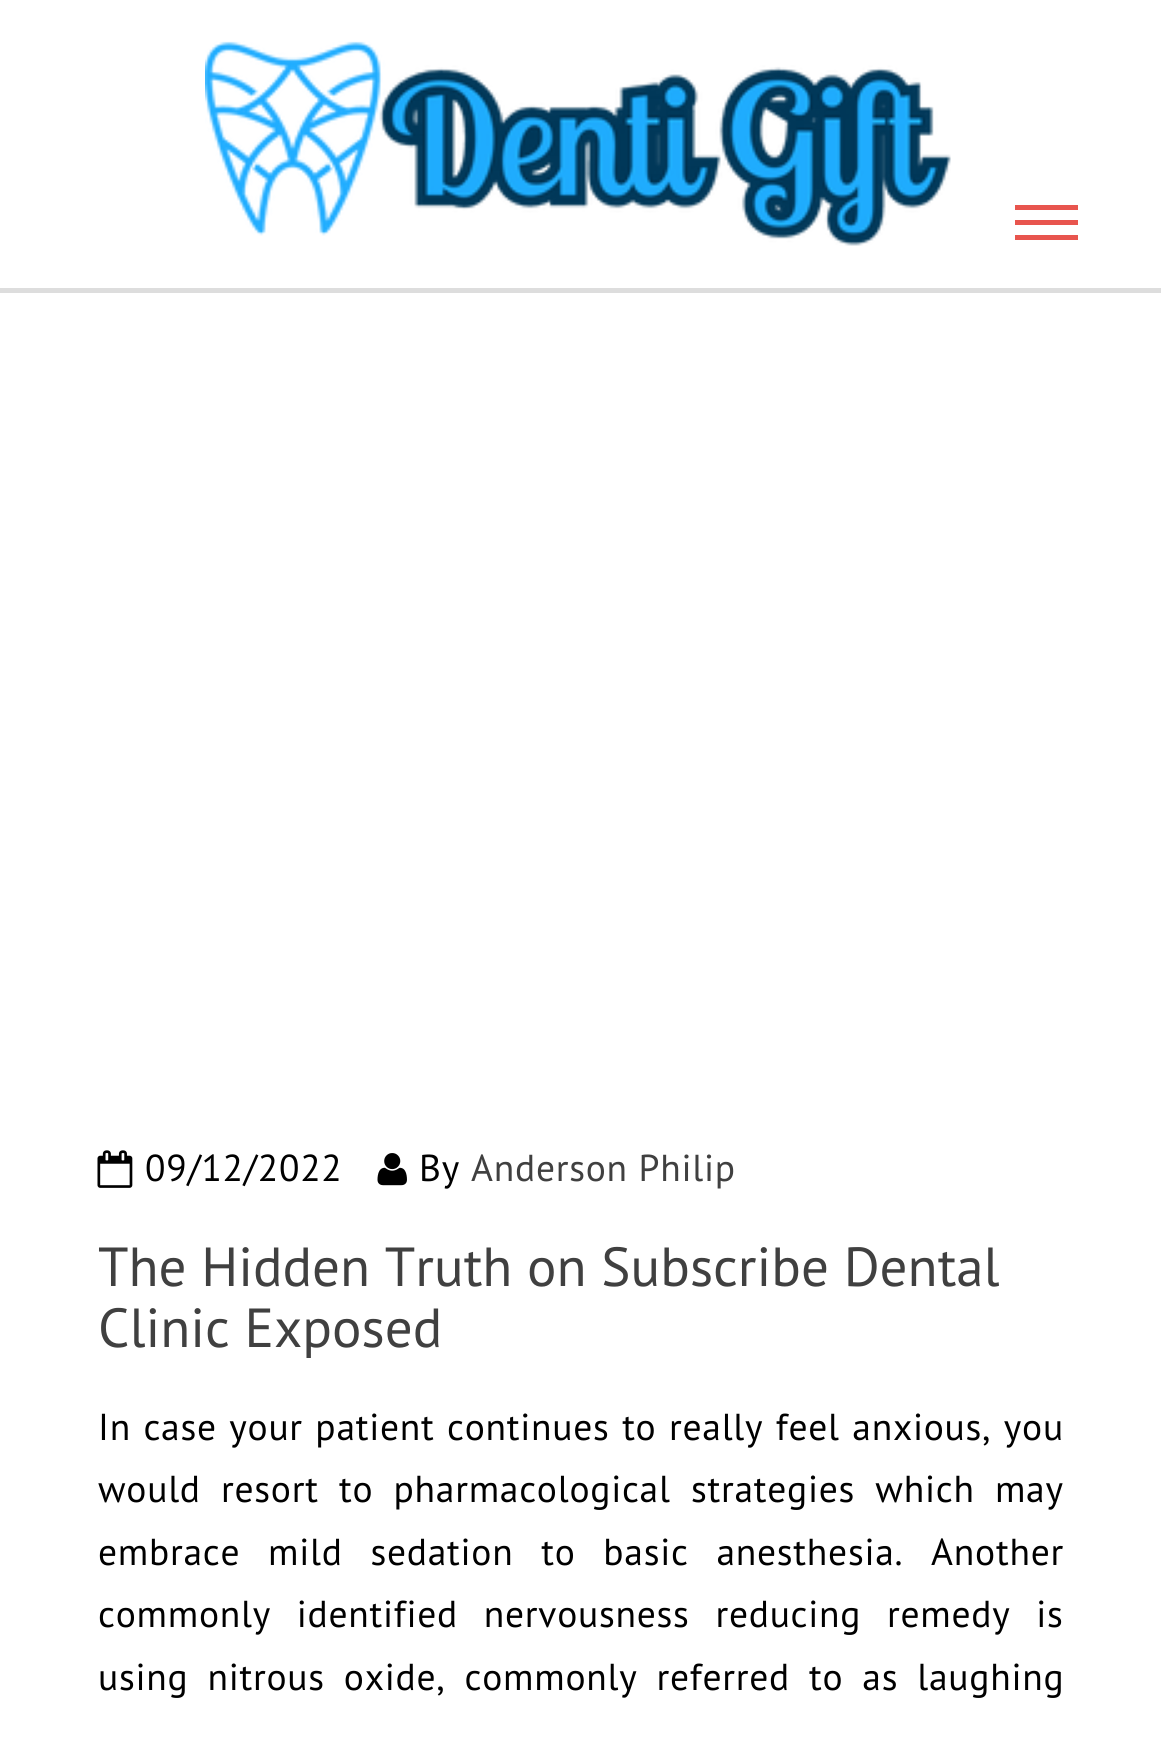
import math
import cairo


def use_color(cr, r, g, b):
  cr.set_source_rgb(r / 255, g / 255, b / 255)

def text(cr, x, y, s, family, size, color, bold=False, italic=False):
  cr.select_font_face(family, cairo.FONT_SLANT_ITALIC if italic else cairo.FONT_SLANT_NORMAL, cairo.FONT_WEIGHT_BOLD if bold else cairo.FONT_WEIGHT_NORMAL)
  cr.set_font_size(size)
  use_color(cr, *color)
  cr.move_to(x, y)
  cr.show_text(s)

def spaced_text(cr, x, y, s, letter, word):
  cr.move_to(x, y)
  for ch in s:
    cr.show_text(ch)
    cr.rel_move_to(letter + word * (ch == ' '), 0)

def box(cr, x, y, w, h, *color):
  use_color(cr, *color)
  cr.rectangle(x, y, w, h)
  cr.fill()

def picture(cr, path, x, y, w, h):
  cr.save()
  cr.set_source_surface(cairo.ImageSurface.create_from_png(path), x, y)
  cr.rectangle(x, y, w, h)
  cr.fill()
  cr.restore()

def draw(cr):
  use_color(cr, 255, 255, 255)
  cr.paint()
  picture(cr, "img_01.png", 205, 41, 746, 205)
  box(cr, 0, 288, 1161, 5, 221, 221, 221)
  box(cr, 1015, 205, 63, 5, 232, 85, 78)
  box(cr, 1015, 220, 63, 5, 232, 85, 78)
  box(cr, 1015, 235, 63, 5, 232, 85, 78)
  picture(cr, "img_02.png", 97, 1150, 36, 38)
  picture(cr, "img_03.png", 377, 1153, 30, 33)
  cr.select_font_face("PT Sans")
  cr.set_font_size(37.5)
  use_color(cr, 0, 0, 0)
  spaced_text(cr, 145, 1181, "09/12/2022", 0.75, 0)
  spaced_text(cr, 419, 1181, "By", 0.75, 0)
  use_color(cr, 64, 64, 64)
  spaced_text(cr, 471, 1181, "Anderson Philip", 0.75, 0)
  text(cr, 98, 1286, "The Hidden Truth on Subscribe Dental", "PT Sans", 55, (64, 64, 64))
  text(cr, 98, 1347, "Clinic Exposed", "PT Sans", 55, (64, 64, 64))
  cr.set_font_size(37.5)
  use_color(cr, 0, 0, 0)
  spaced_text(cr, 98, 1440, "In case your patient continues to really feel anxious, you", 0.75, 1.75)
  spaced_text(cr, 98, 1502, "would resort to pharmacological strategies which may", 0.75, 9.5)
  spaced_text(cr, 98, 1565, "embrace mild sedation to basic anesthesia. Another", 0.75, 17)
  spaced_text(cr, 98, 1627, "commonly identified nervousness reducing remedy is", 0.75, 15)
  spaced_text(cr, 98, 1690, "using nitrous oxide, commonly referred to as laughing", 0.75, 8.25)


surface = cairo.ImageSurface(cairo.FORMAT_RGB24, 1161, 1741)
cr = cairo.Context(surface)
options = cairo.FontOptions()
options.set_hint_metrics(cairo.HINT_METRICS_OFF)
options.set_hint_style(cairo.HINT_STYLE_NONE)
cr.set_font_options(options)
cr.set_miter_limit(4)
draw(cr)
surface.write_to_png("out.png")
